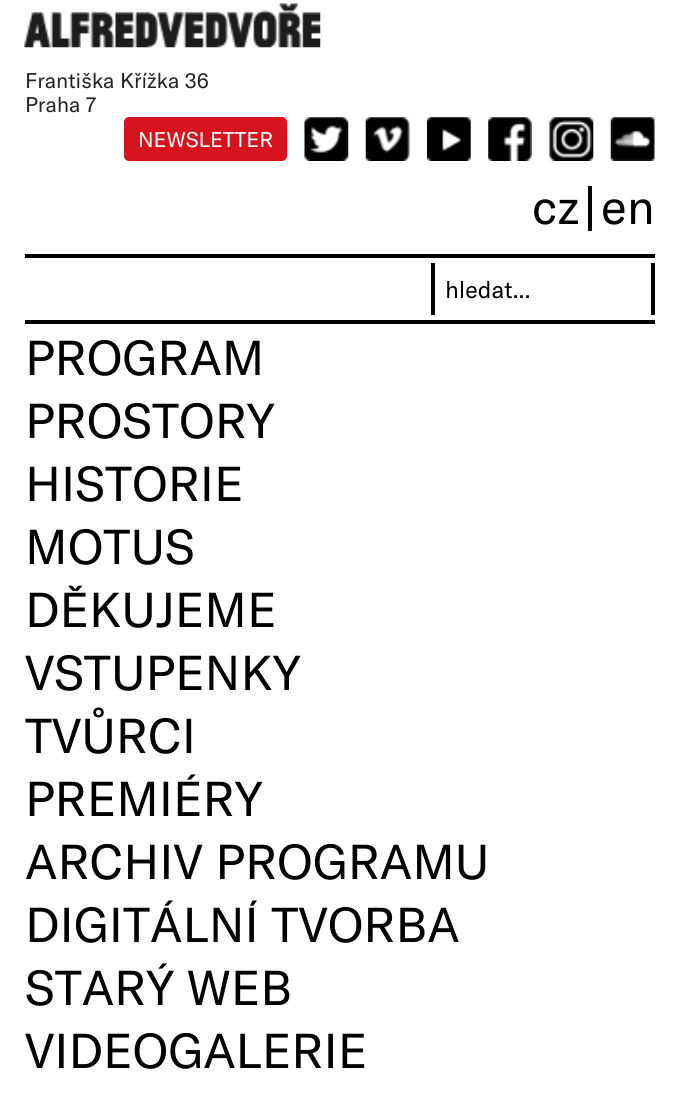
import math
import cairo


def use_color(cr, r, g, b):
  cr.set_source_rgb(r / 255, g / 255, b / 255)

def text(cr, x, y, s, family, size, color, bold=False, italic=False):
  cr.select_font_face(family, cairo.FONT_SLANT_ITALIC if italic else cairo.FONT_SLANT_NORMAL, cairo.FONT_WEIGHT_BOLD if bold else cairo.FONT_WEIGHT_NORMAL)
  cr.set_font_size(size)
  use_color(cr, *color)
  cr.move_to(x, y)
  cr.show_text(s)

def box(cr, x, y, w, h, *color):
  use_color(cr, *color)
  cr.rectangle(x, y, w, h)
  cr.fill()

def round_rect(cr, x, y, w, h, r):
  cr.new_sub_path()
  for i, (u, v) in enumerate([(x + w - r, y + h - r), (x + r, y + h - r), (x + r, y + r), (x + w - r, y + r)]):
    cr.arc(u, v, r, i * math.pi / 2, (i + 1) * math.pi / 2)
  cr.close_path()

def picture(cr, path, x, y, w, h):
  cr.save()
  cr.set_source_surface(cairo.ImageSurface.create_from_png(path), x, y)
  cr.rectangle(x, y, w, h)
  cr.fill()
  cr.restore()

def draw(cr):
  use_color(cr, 255, 255, 255)
  cr.paint()
  picture(cr, "img_01.png", 24, 3, 297, 45)
  use_color(cr, 215, 20, 30)
  round_rect(cr, 124, 117, 163, 44, 5)
  cr.fill()
  picture(cr, "img_02.png", 304, 117, 45, 44)
  picture(cr, "img_03.png", 365, 117, 45, 44)
  picture(cr, "img_04.png", 427, 117, 44, 44)
  picture(cr, "img_05.png", 488, 117, 44, 44)
  picture(cr, "img_06.png", 549, 117, 45, 44)
  picture(cr, "img_07.png", 610, 117, 45, 44)
  box(cr, 588, 186, 4, 45, 0, 0, 0)
  box(cr, 25, 254, 630, 4, 0, 0, 0)
  box(cr, 651, 263, 4, 52, 0, 0, 0)
  box(cr, 431, 263, 4, 52, 0, 0, 0)
  box(cr, 25, 320, 630, 4, 0, 0, 0)
  text(cr, 25, 88, "Františka Křížka 36", "GT America", 21, (34, 34, 34))
  text(cr, 25, 112, "Praha 7", "GT America", 21, (34, 34, 34))
  text(cr, 138, 147, "NEWSLETTER", "GT America", 21, (255, 255, 255))
  text(cr, 532, 224, "cz", "GT America", 48.25, (0, 0, 0))
  text(cr, 601, 224, "en", "GT America", 48.25, (0, 0, 0))
  text(cr, 445, 298, "hledat...", "GT America", 23.5, (0, 0, 0))
  text(cr, 25, 375, "PROGRAM", "GT America", 48.25, (0, 0, 0))
  text(cr, 25, 438, "PROSTORY", "GT America", 48.25, (0, 0, 0))
  text(cr, 25, 501, "HISTORIE", "GT America", 48.25, (0, 0, 0))
  text(cr, 25, 564, "MOTUS", "GT America", 48.25, (0, 0, 0))
  text(cr, 25, 627, "DĚKUJEME", "GT America", 48.25, (0, 0, 0))
  text(cr, 25, 690, "VSTUPENKY", "GT America", 48.25, (0, 0, 0))
  text(cr, 25, 753, "TVŮRCI", "GT America", 48.25, (0, 0, 0))
  text(cr, 25, 816, "PREMIÉRY", "GT America", 48.25, (0, 0, 0))
  text(cr, 25, 879, "ARCHIV PROGRAMU", "GT America", 48.25, (0, 0, 0))
  text(cr, 25, 942, "DIGITÁLNÍ TVORBA", "GT America", 48.25, (0, 0, 0))
  text(cr, 25, 1005, "STARÝ WEB", "GT America", 48.25, (0, 0, 0))
  text(cr, 25, 1068, "VIDEOGALERIE", "GT America", 48.25, (0, 0, 0))


surface = cairo.ImageSurface(cairo.FORMAT_RGB24, 679, 1094)
cr = cairo.Context(surface)
options = cairo.FontOptions()
options.set_hint_metrics(cairo.HINT_METRICS_OFF)
options.set_hint_style(cairo.HINT_STYLE_NONE)
cr.set_font_options(options)
cr.set_miter_limit(4)
draw(cr)
surface.write_to_png("out.png")
